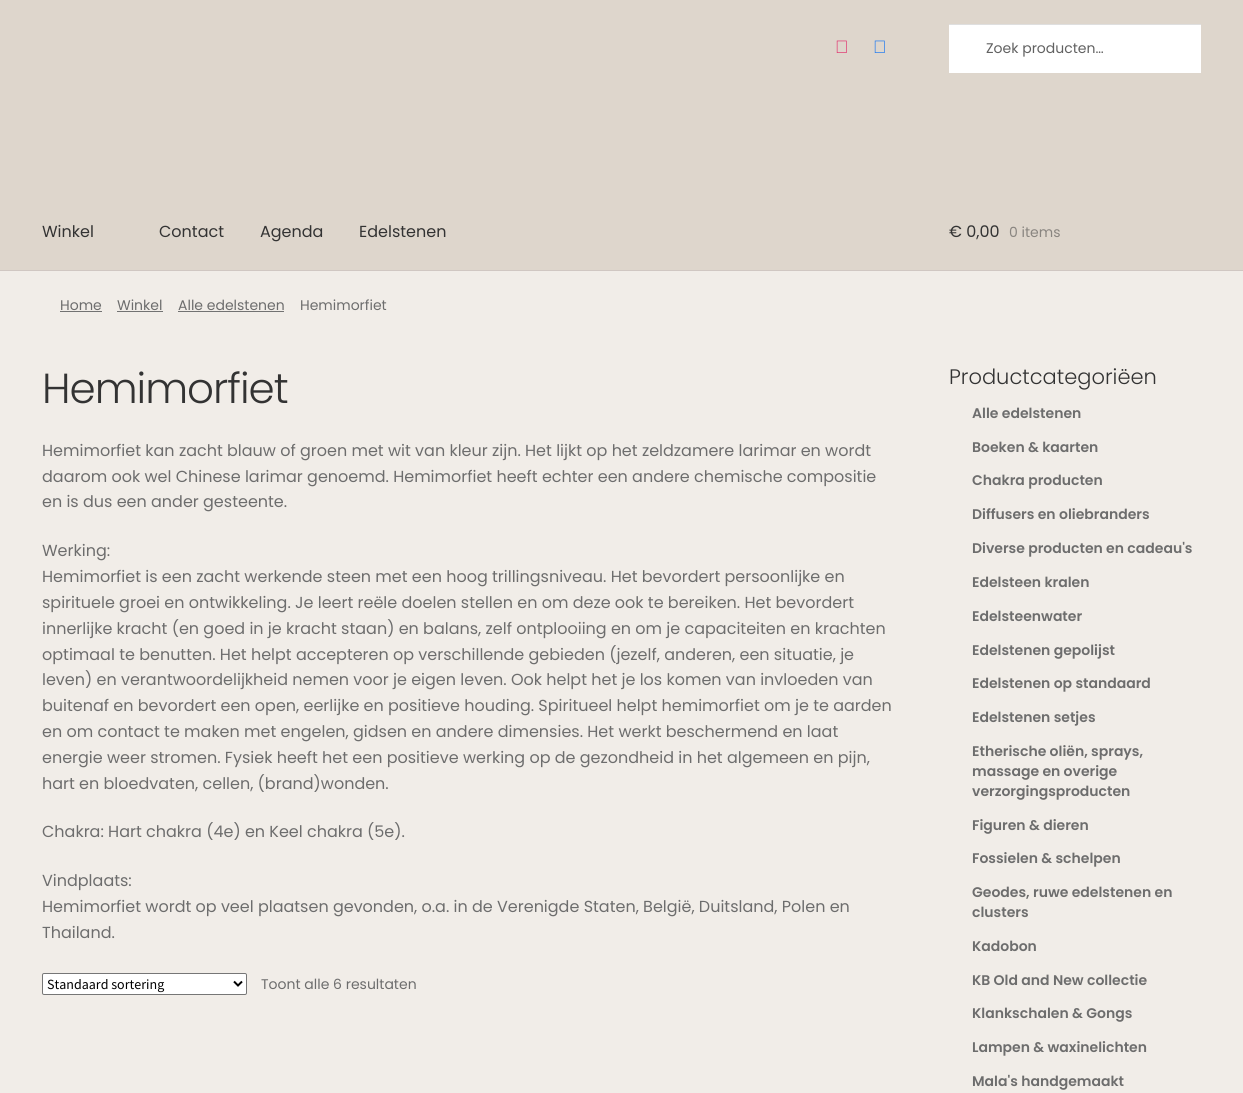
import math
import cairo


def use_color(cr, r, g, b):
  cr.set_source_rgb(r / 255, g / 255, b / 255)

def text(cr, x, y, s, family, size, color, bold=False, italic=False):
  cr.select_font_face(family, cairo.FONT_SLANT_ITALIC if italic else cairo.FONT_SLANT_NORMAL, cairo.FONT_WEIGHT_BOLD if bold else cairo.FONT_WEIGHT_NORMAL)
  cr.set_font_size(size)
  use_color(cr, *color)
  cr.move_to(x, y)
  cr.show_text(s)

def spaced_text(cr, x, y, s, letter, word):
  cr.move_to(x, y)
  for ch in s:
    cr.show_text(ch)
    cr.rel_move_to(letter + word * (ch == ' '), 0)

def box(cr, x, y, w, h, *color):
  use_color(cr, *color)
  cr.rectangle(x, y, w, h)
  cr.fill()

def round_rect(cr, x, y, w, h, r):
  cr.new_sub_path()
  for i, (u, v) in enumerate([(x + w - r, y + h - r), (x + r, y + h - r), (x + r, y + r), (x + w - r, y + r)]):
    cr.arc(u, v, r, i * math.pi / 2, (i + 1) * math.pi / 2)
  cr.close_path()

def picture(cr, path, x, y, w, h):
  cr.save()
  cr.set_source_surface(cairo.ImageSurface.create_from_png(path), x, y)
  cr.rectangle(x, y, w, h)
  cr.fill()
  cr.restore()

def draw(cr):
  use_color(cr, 241, 237, 232)
  cr.paint()
  box(cr, 0, 0, 1243, 270, 222, 214, 204)
  box(cr, 0, 270, 1243, 1, 208, 199, 194)
  picture(cr, "img_01.png", 836, 40, 11, 13)
  picture(cr, "img_02.png", 874, 40, 11, 13)
  box(cr, 949, 25, 252, 48, 255, 255, 255)
  box(cr, 949, 24, 252, 1, 223, 223, 223)
  box(cr, 60, 311, 42, 1, 114, 114, 114)
  box(cr, 117, 311, 46, 1, 114, 114, 114)
  box(cr, 178, 311, 106, 1, 114, 114, 114)
  use_color(cr, 255, 255, 255)
  round_rect(cr, 42.5, 973.5, 204, 21, 1.5)
  cr.fill_preserve()
  use_color(cr, 118, 118, 118)
  cr.set_line_width(1)
  cr.stroke()
  cr.new_path()
  cr.move_to(234, 981.5)
  cr.line_to(238, 985.5)
  cr.line_to(242, 981.5)
  use_color(cr, 0, 0, 0)
  cr.set_line_width(2)
  cr.stroke()
  text(cr, 986, 53, "Zoek producten…", "Poppins", 14, (97, 97, 97))
  text(cr, 42, 237, "Winkel", "Poppins", 16, (51, 51, 51))
  text(cr, 159, 237, "Contact", "Poppins", 16, (51, 51, 51))
  text(cr, 260, 237, "Agenda", "Poppins", 16, (51, 51, 51))
  text(cr, 359, 237, "Edelstenen", "Poppins", 16, (51, 51, 51))
  text(cr, 949, 237, "€ 0,00", "Poppins", 16, (51, 51, 51))
  text(cr, 1009, 237, "0 items", "Poppins", 14, (137, 133, 128))
  text(cr, 60, 310, "Home", "Poppins", 14, (109, 109, 109))
  text(cr, 117, 310, "Winkel", "Poppins", 14, (109, 109, 109))
  text(cr, 178, 310, "Alle edelstenen", "Poppins", 14, (109, 109, 109))
  text(cr, 300, 310, "Hemimorfiet", "Poppins", 14, (109, 109, 109))
  cr.select_font_face("Poppins Light")
  cr.set_font_size(42)
  use_color(cr, 51, 51, 51)
  spaced_text(cr, 42, 403, "Hemimorfiet", -1, 0)
  text(cr, 42, 456, "Hemimorfiet kan zacht blauw of groen met wit van kleur zijn. Het lijkt op het zeldzamere larimar en wordt", "Poppins", 16, (109, 109, 109))
  text(cr, 42, 482, "daarom ook wel Chinese larimar genoemd. Hemimorfiet heeft echter een andere chemische compositie", "Poppins", 16, (109, 109, 109))
  text(cr, 42, 507, "en is dus een ander gesteente.", "Poppins", 16, (109, 109, 109))
  text(cr, 42, 556, "Werking:", "Poppins", 16, (109, 109, 109))
  text(cr, 42, 582, "Hemimorfiet is een zacht werkende steen met een hoog trillingsniveau. Het bevordert persoonlijke en", "Poppins", 16, (109, 109, 109))
  text(cr, 42, 608, "spirituele groei en ontwikkeling. Je leert reële doelen stellen en om deze ook te bereiken. Het bevordert", "Poppins", 16, (109, 109, 109))
  text(cr, 42, 634, "innerlijke kracht (en goed in je kracht staan) en balans, zelf ontplooiing en om je capaciteiten en krachten", "Poppins", 16, (109, 109, 109))
  text(cr, 42, 660, "optimaal te benutten. Het helpt accepteren op verschillende gebieden (jezelf, anderen, een situatie, je", "Poppins", 16, (109, 109, 109))
  text(cr, 42, 685, "leven) en verantwoordelijkheid nemen voor je eigen leven. Ook helpt het je los komen van invloeden van", "Poppins", 16, (109, 109, 109))
  text(cr, 42, 711, "buitenaf en bevordert een open, eerlijke en positieve houding. Spiritueel helpt hemimorfiet om je te aarden", "Poppins", 16, (109, 109, 109))
  text(cr, 42, 737, "en om contact te maken met engelen, gidsen en andere dimensies. Het werkt beschermend en laat", "Poppins", 16, (109, 109, 109))
  text(cr, 42, 763, "energie weer stromen. Fysiek heeft het een positieve werking op de gezondheid in het algemeen en pijn,", "Poppins", 16, (109, 109, 109))
  text(cr, 42, 789, "hart en bloedvaten, cellen, (brand)wonden.", "Poppins", 16, (109, 109, 109))
  text(cr, 42, 837, "Chakra: Hart chakra (4e) en Keel chakra (5e).", "Poppins", 16, (109, 109, 109))
  text(cr, 42, 886, "Vindplaats:", "Poppins", 16, (109, 109, 109))
  text(cr, 42, 912, "Hemimorfiet wordt op veel plaatsen gevonden, o.a. in de Verenigde Staten, België, Duitsland, Polen en", "Poppins", 16, (109, 109, 109))
  text(cr, 42, 938, "Thailand.", "Poppins", 16, (109, 109, 109))
  text(cr, 47, 989, "Standaard sortering", "Source Sans Pro", 14, (0, 0, 0))
  text(cr, 261, 989, "Toont alle 6 resultaten", "Poppins", 14, (109, 109, 109))
  text(cr, 949, 384, "Productcategoriëen", "Poppins Light", 21, (51, 51, 51))
  text(cr, 972, 418, "Alle edelstenen", "Poppins SemiBold", 14, (109, 109, 109))
  text(cr, 972, 452, "Boeken & kaarten", "Poppins SemiBold", 14, (109, 109, 109))
  text(cr, 972, 485, "Chakra producten", "Poppins SemiBold", 14, (109, 109, 109))
  text(cr, 972, 519, "Diffusers en oliebranders", "Poppins SemiBold", 14, (109, 109, 109))
  text(cr, 972, 553, "Diverse producten en cadeau's", "Poppins SemiBold", 14, (109, 109, 109))
  text(cr, 972, 587, "Edelsteen kralen", "Poppins SemiBold", 14, (109, 109, 109))
  text(cr, 972, 621, "Edelsteenwater", "Poppins SemiBold", 14, (109, 109, 109))
  text(cr, 972, 655, "Edelstenen gepolijst", "Poppins SemiBold", 14, (109, 109, 109))
  text(cr, 972, 688, "Edelstenen op standaard", "Poppins SemiBold", 14, (109, 109, 109))
  text(cr, 972, 722, "Edelstenen setjes", "Poppins SemiBold", 14, (109, 109, 109))
  text(cr, 972, 756, "Etherische oliën, sprays,", "Poppins SemiBold", 14, (109, 109, 109))
  text(cr, 972, 776, "massage en overige", "Poppins SemiBold", 14, (109, 109, 109))
  text(cr, 972, 796, "verzorgingsproducten", "Poppins SemiBold", 14, (109, 109, 109))
  text(cr, 972, 830, "Figuren & dieren", "Poppins SemiBold", 14, (109, 109, 109))
  text(cr, 972, 863, "Fossielen & schelpen", "Poppins SemiBold", 14, (109, 109, 109))
  text(cr, 972, 897, "Geodes, ruwe edelstenen en", "Poppins SemiBold", 14, (109, 109, 109))
  text(cr, 972, 917, "clusters", "Poppins SemiBold", 14, (109, 109, 109))
  text(cr, 972, 951, "Kadobon", "Poppins SemiBold", 14, (109, 109, 109))
  text(cr, 972, 985, "KB Old and New collectie", "Poppins SemiBold", 14, (109, 109, 109))
  text(cr, 972, 1018, "Klankschalen & Gongs", "Poppins SemiBold", 14, (109, 109, 109))
  text(cr, 972, 1052, "Lampen & waxinelichten", "Poppins SemiBold", 14, (109, 109, 109))
  text(cr, 972, 1086, "Mala's handgemaakt", "Poppins SemiBold", 14, (109, 109, 109))


surface = cairo.ImageSurface(cairo.FORMAT_RGB24, 1243, 1093)
cr = cairo.Context(surface)
options = cairo.FontOptions()
options.set_hint_metrics(cairo.HINT_METRICS_OFF)
options.set_hint_style(cairo.HINT_STYLE_NONE)
cr.set_font_options(options)
cr.set_miter_limit(4)
draw(cr)
surface.write_to_png("out.png")
